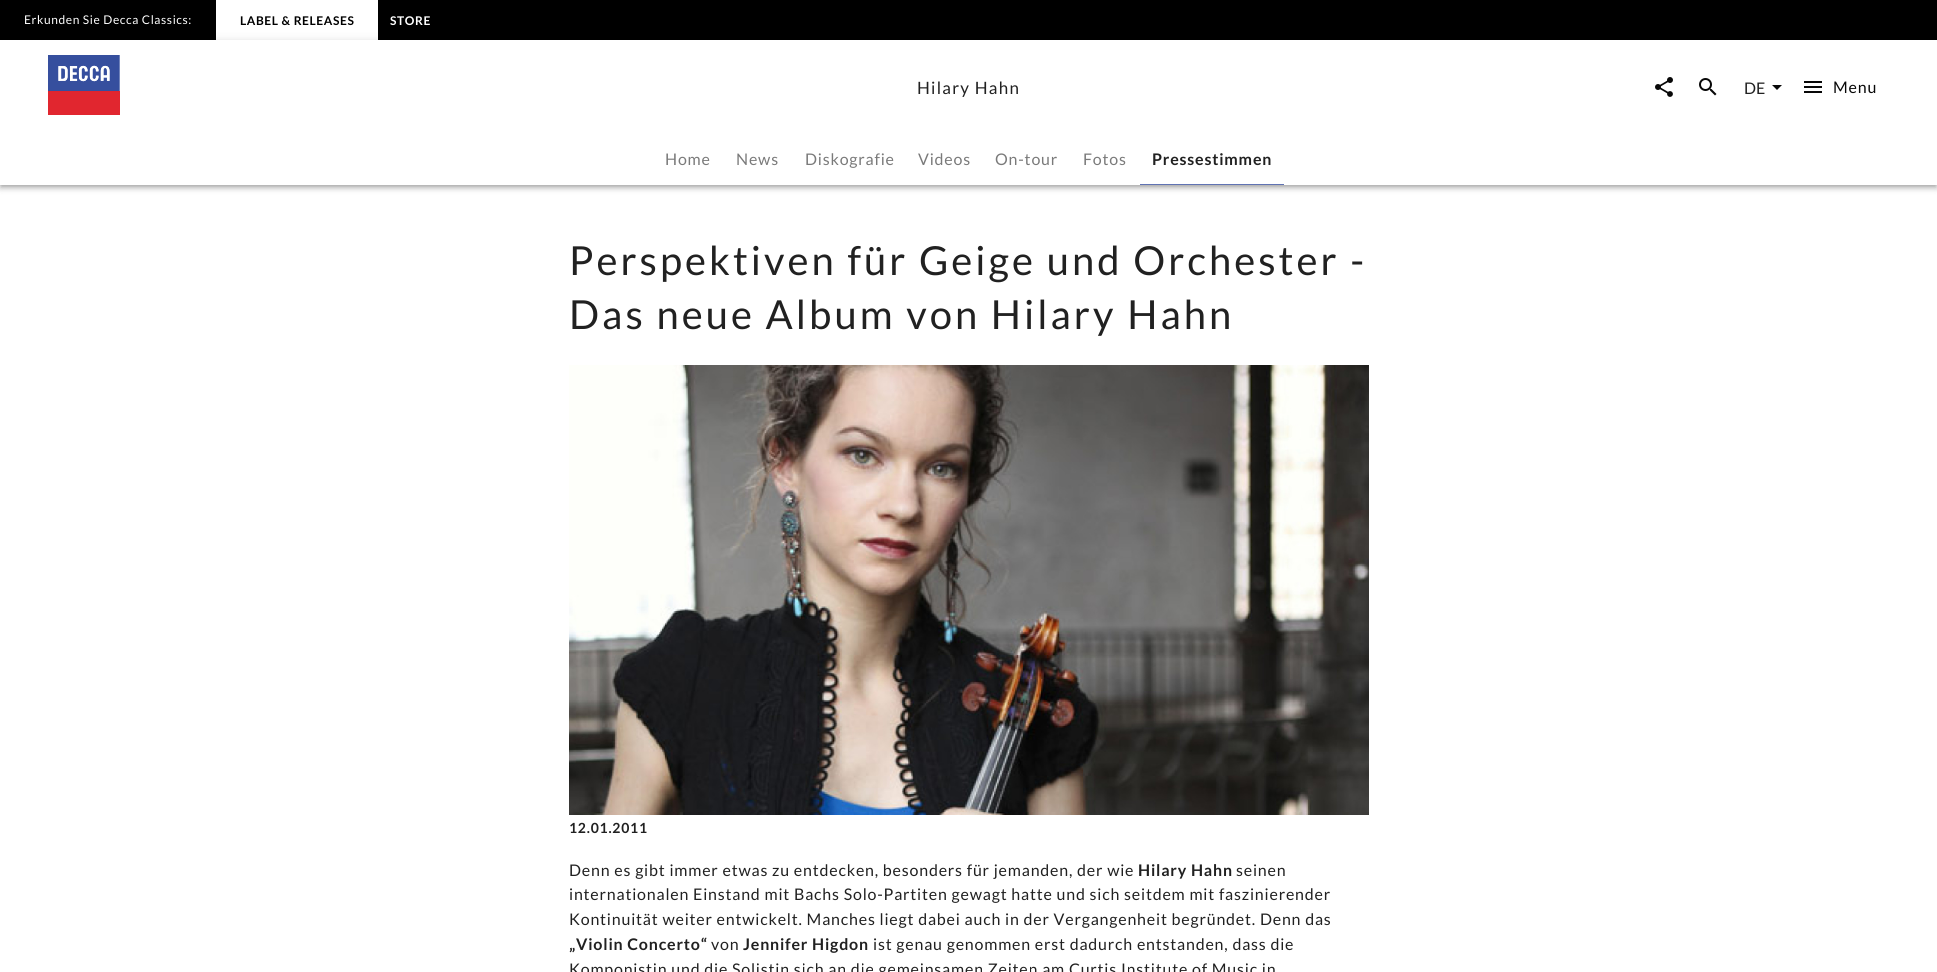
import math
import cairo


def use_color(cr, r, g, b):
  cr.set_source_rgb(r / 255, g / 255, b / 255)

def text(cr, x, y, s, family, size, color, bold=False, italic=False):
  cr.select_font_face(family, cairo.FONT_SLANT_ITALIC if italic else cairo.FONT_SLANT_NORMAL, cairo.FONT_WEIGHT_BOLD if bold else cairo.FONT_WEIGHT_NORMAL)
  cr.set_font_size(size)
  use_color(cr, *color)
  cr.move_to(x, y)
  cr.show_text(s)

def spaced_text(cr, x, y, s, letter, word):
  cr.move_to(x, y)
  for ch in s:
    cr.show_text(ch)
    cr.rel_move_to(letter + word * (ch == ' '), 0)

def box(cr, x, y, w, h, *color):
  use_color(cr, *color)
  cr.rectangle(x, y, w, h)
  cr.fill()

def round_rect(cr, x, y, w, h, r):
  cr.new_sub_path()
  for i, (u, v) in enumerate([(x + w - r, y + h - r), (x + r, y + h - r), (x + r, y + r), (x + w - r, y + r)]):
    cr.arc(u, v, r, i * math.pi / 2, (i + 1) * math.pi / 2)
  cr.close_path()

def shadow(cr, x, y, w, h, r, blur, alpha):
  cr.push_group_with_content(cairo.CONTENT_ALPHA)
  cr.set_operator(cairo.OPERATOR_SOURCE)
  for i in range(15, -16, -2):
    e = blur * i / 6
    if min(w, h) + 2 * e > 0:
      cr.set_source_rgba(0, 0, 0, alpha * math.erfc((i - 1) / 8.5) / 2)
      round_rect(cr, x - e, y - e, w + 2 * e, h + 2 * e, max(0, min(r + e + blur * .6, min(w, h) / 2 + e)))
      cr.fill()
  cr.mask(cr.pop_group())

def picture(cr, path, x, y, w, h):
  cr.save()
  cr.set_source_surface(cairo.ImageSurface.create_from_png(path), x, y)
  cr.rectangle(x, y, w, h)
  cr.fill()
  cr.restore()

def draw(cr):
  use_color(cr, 255, 255, 255)
  cr.paint()
  box(cr, 0, 0, 1937, 40, 0, 0, 0)
  box(cr, 216, 0, 162, 40, 255, 255, 255)
  use_color(cr, 0, 0, 0)
  shadow(cr, 0, 41, 1937, 145, 0, 5, 0.12)
  shadow(cr, 0, 44, 1937, 145, 0, 2.5, 0.14)
  shadow(cr, 1, 43, 1935, 143, 0, 2, 0.2)
  box(cr, 0, 40, 1937, 145, 255, 255, 255)
  picture(cr, "img_01.png", 48, 55, 72, 60)
  picture(cr, "img_02.png", 1655, 77, 18, 20)
  picture(cr, "img_03.png", 1699, 78, 18, 18)
  use_color(cr, 8, 8, 8)
  cr.new_path()
  cr.move_to(1772, 85)
  cr.line_to(1777, 90)
  cr.line_to(1782, 85)
  cr.close_path()
  cr.fill()
  picture(cr, "img_04.png", 1804, 81, 18, 12)
  box(cr, 1140, 184, 144, 1, 96, 115, 179)
  picture(cr, "img_05.png", 569, 365, 800, 450)
  cr.select_font_face("Lato")
  cr.set_font_size(12)
  use_color(cr, 255, 255, 255)
  spaced_text(cr, 24, 24, "Erkunden Sie Decca Classics:", 0.6, 0)
  cr.select_font_face("Lato", cairo.FONT_SLANT_NORMAL, cairo.FONT_WEIGHT_BOLD)
  use_color(cr, 0, 0, 0)
  spaced_text(cr, 240, 25, "LABEL & RELEASES", 0.6, 0)
  use_color(cr, 255, 255, 255)
  spaced_text(cr, 390, 25, "STORE", 0.6, 0)
  cr.select_font_face("Lato")
  cr.set_font_size(17)
  use_color(cr, 33, 33, 33)
  spaced_text(cr, 917, 94, "Hilary Hahn", 1.25, 0)
  text(cr, 1744, 94, "DE", "Lato", 16, (33, 33, 33))
  use_color(cr, 8, 8, 8)
  spaced_text(cr, 1833, 93, "Menu", 0.8, 0)
  use_color(cr, 122, 122, 122)
  spaced_text(cr, 665, 165, "Home", 0.8, 0)
  spaced_text(cr, 736, 165, "News", 0.8, 0)
  spaced_text(cr, 805, 165, "Diskografie", 0.8, 0)
  spaced_text(cr, 918, 165, "Videos", 0.8, 0)
  spaced_text(cr, 995, 165, "On-tour", 0.8, 0)
  spaced_text(cr, 1083, 165, "Fotos", 0.8, 0)
  cr.select_font_face("Lato", cairo.FONT_SLANT_NORMAL, cairo.FONT_WEIGHT_BOLD)
  use_color(cr, 33, 33, 33)
  spaced_text(cr, 1152, 165, "Pressestimmen", 0.8, 0)
  cr.select_font_face("Lato")
  cr.set_font_size(40)
  spaced_text(cr, 569, 275, "Perspektiven für Geige und Orchester -", 3, 0)
  spaced_text(cr, 569, 329, "Das neue Album von Hilary Hahn", 3, 0)
  cr.select_font_face("Lato", cairo.FONT_SLANT_NORMAL, cairo.FONT_WEIGHT_BOLD)
  cr.set_font_size(14)
  spaced_text(cr, 569, 833, "12.01.2011", 0.75, 0)
  cr.select_font_face("Lato")
  cr.set_font_size(16)
  spaced_text(cr, 569, 876, "Denn es gibt immer etwas zu entdecken, besonders für jemanden, der wie", 0.8, 0)
  cr.select_font_face("Lato", cairo.FONT_SLANT_NORMAL, cairo.FONT_WEIGHT_BOLD)
  spaced_text(cr, 1138, 876, "Hilary Hahn", 0.8, 0)
  cr.select_font_face("Lato")
  spaced_text(cr, 1236, 876, "seinen", 0.8, 0)
  spaced_text(cr, 569, 900, "internationalen Einstand mit Bachs Solo-Partiten gewagt hatte und sich seitdem mit faszinierender", 0.8, 0)
  spaced_text(cr, 569, 925, "Kontinuität weiter entwickelt. Manches liegt dabei auch in der Vergangenheit begründet. Denn das", 0.8, 0)
  cr.select_font_face("Lato", cairo.FONT_SLANT_NORMAL, cairo.FONT_WEIGHT_BOLD)
  spaced_text(cr, 569, 950, "„Violin Concerto“", 0.8, 0)
  cr.select_font_face("Lato")
  spaced_text(cr, 711, 950, "von", 0.8, 0)
  cr.select_font_face("Lato", cairo.FONT_SLANT_NORMAL, cairo.FONT_WEIGHT_BOLD)
  spaced_text(cr, 743, 950, "Jennifer Higdon", 0.8, 0)
  cr.select_font_face("Lato")
  spaced_text(cr, 873, 950, "ist genau genommen erst dadurch entstanden, dass die", 0.8, 0)
  spaced_text(cr, 569, 975, "Komponistin und die Solistin sich an die gemeinsamen Zeiten am Curtis Institute of Music in", 0.8, 0)


surface = cairo.ImageSurface(cairo.FORMAT_RGB24, 1937, 972)
cr = cairo.Context(surface)
options = cairo.FontOptions()
options.set_hint_metrics(cairo.HINT_METRICS_OFF)
options.set_hint_style(cairo.HINT_STYLE_NONE)
cr.set_font_options(options)
cr.set_miter_limit(4)
draw(cr)
surface.write_to_png("out.png")
